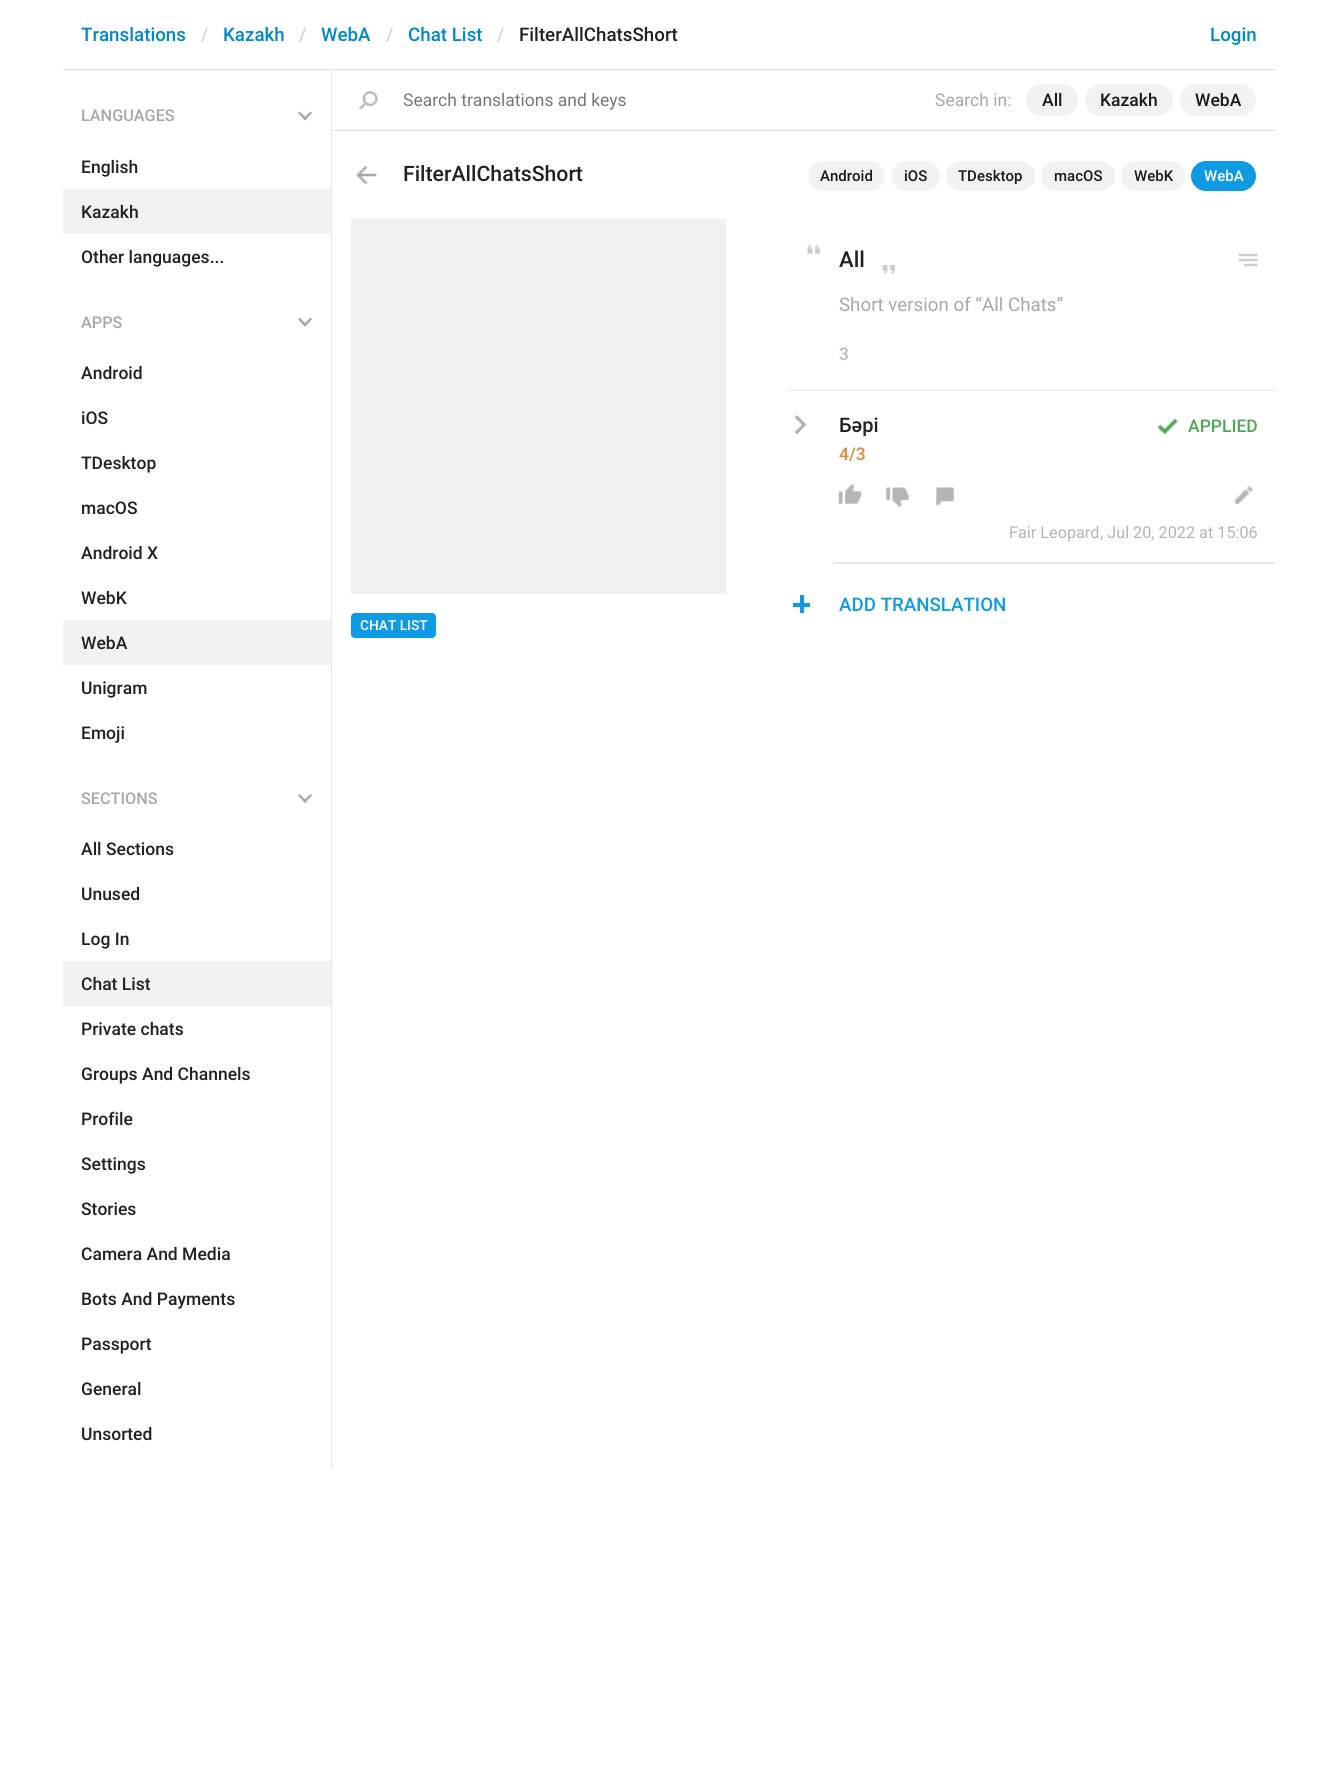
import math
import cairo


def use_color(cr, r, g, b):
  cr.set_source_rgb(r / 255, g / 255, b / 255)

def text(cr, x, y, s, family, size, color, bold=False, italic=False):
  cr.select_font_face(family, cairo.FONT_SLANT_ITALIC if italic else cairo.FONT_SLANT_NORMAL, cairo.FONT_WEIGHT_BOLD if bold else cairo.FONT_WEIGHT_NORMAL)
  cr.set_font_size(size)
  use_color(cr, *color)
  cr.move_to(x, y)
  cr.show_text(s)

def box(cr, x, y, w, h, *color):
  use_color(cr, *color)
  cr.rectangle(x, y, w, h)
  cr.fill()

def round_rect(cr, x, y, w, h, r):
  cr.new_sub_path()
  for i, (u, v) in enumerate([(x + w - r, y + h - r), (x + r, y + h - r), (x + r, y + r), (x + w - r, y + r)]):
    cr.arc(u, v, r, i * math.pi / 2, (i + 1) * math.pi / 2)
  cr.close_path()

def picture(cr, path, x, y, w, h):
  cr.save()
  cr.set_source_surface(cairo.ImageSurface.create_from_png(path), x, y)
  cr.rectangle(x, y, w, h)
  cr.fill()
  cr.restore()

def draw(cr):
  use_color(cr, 255, 255, 255)
  cr.paint()
  box(cr, 63, 69, 1212, 1, 224, 224, 224)
  box(cr, 333, 130, 942, 1, 224, 224, 224)
  picture(cr, "img_01.png", 358, 91, 20, 19)
  use_color(cr, 242, 242, 242)
  round_rect(cr, 1026, 84, 52, 32, 16)
  cr.fill()
  round_rect(cr, 1085, 84, 88, 32, 16)
  cr.fill()
  round_rect(cr, 1180, 84, 76, 32, 16)
  cr.fill()
  use_color(cr, 168, 168, 168)
  cr.new_path()
  cr.move_to(305, 120.5)
  cr.line_to(298, 113)
  cr.line_to(299.5, 111.5)
  cr.line_to(307, 118.5)
  cr.close_path()
  cr.fill()
  cr.new_path()
  cr.move_to(305, 120.5)
  cr.line_to(303, 118.5)
  cr.line_to(310.5, 111.5)
  cr.line_to(312, 113)
  cr.close_path()
  cr.fill()
  box(cr, 63, 189, 268, 45, 242, 242, 242)
  use_color(cr, 168, 168, 168)
  cr.new_path()
  cr.move_to(305, 326.5)
  cr.line_to(298, 319.5)
  cr.line_to(299.5, 317.5)
  cr.line_to(307, 325)
  cr.close_path()
  cr.fill()
  cr.new_path()
  cr.move_to(305, 326.5)
  cr.line_to(303, 325)
  cr.line_to(310.5, 317.5)
  cr.line_to(312, 319.5)
  cr.close_path()
  cr.fill()
  box(cr, 63, 620, 268, 45, 242, 242, 242)
  use_color(cr, 168, 168, 168)
  cr.new_path()
  cr.move_to(305, 803)
  cr.line_to(298, 795.5)
  cr.line_to(299.5, 794)
  cr.line_to(307, 801)
  cr.close_path()
  cr.fill()
  cr.new_path()
  cr.move_to(305, 803)
  cr.line_to(303, 801)
  cr.line_to(310.5, 794)
  cr.line_to(312, 795.5)
  cr.close_path()
  cr.fill()
  box(cr, 63, 961, 268, 45, 242, 242, 242)
  box(cr, 331, 70, 1, 1399, 231, 231, 231)
  picture(cr, "img_02.png", 356, 166, 21, 18)
  use_color(cr, 242, 242, 242)
  round_rect(cr, 808, 161, 77, 30, 15)
  cr.fill()
  round_rect(cr, 891, 161, 49, 30, 15)
  cr.fill()
  round_rect(cr, 946, 161, 89, 30, 15)
  cr.fill()
  round_rect(cr, 1041, 161, 74, 30, 15)
  cr.fill()
  round_rect(cr, 1121, 161, 64, 30, 15)
  cr.fill()
  use_color(cr, 15, 154, 228)
  round_rect(cr, 1191, 161, 65, 30, 15)
  cr.fill()
  picture(cr, "img_03.png", 807, 245, 14, 9)
  picture(cr, "img_04.png", 882, 265, 14, 9)
  picture(cr, "img_05.png", 1238, 253, 20, 14)
  box(cr, 789, 390, 486, 1, 231, 231, 231)
  cr.save()
  cr.rectangle(758, 391, 517, 174)
  cr.clip()
  cr.new_path()
  cr.move_to(833, 562)
  cr.line_to(833, 564)
  cr.line_to(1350, 564)
  cr.line_to(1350, 393)
  cr.line_to(1275, 393)
  cr.line_to(1275, 562)
  cr.close_path()
  cr.fill()
  cr.restore()
  use_color(cr, 179, 179, 179)
  cr.new_path()
  cr.move_to(802, 425)
  cr.line_to(794.5, 432)
  cr.line_to(797, 434.5)
  cr.line_to(806.5, 424.5)
  cr.line_to(797, 415)
  cr.line_to(794.5, 417.5)
  cr.close_path()
  cr.fill()
  picture(cr, "img_06.png", 838, 483, 24, 21)
  picture(cr, "img_07.png", 886, 487, 23, 21)
  picture(cr, "img_08.png", 936, 487, 18, 19)
  picture(cr, "img_09.png", 1234, 486, 19, 18)
  picture(cr, "img_10.png", 1157, 418, 21, 17)
  box(cr, 793, 603, 17, 4, 15, 154, 228)
  box(cr, 800, 595, 4, 18, 15, 154, 228)
  box(cr, 351, 219, 375, 375, 240, 240, 240)
  use_color(cr, 15, 154, 228)
  round_rect(cr, 351, 613, 85, 25, 4)
  cr.fill()
  text(cr, 81, 41, "Translations", "Roboto Medium", 18.75, (0, 136, 204))
  text(cr, 201, 41, "/", "Roboto Medium", 18.75, (212, 212, 212))
  text(cr, 223, 41, "Kazakh", "Roboto Medium", 18.75, (0, 136, 204))
  text(cr, 299, 41, "/", "Roboto Medium", 18.75, (212, 212, 212))
  text(cr, 321, 41, "WebA", "Roboto Medium", 18.75, (0, 136, 204))
  text(cr, 386, 41, "/", "Roboto Medium", 18.75, (212, 212, 212))
  text(cr, 408, 41, "Chat List", "Roboto Medium", 18.75, (0, 136, 204))
  text(cr, 497, 41, "/", "Roboto Medium", 18.75, (212, 212, 212))
  text(cr, 519, 41, "FilterAllChatsShort", "Roboto Medium", 18.75, (34, 34, 34))
  text(cr, 1210, 41, "Login", "Roboto Medium", 18.75, (0, 136, 204))
  text(cr, 403, 106, "Search translations and keys", "Roboto", 17.5, (119, 119, 119))
  text(cr, 935, 106, "Search in:", "Roboto", 17.5, (168, 168, 168))
  text(cr, 1042, 106, "All", "Roboto Medium", 17.5, (26, 26, 26))
  text(cr, 1100, 106, "Kazakh", "Roboto Medium", 17.5, (26, 26, 26))
  text(cr, 1195, 106, "WebA", "Roboto Medium", 17.5, (26, 26, 26))
  text(cr, 81, 121, "LANGUAGES", "Roboto Medium", 16.25, (168, 168, 168))
  text(cr, 81, 173, "English", "Roboto Medium", 17.5, (34, 34, 34))
  text(cr, 81, 218, "Kazakh", "Roboto Medium", 17.5, (34, 34, 34))
  text(cr, 81, 263, "Other languages...", "Roboto Medium", 17.5, (34, 34, 34))
  text(cr, 81, 328, "APPS", "Roboto Medium", 16.25, (168, 168, 168))
  text(cr, 81, 379, "Android", "Roboto Medium", 17.5, (34, 34, 34))
  text(cr, 81, 424, "iOS", "Roboto Medium", 17.5, (34, 34, 34))
  text(cr, 81, 469, "TDesktop", "Roboto Medium", 17.5, (34, 34, 34))
  text(cr, 81, 514, "macOS", "Roboto Medium", 17.5, (34, 34, 34))
  text(cr, 81, 559, "Android X", "Roboto Medium", 17.5, (34, 34, 34))
  text(cr, 81, 604, "WebK", "Roboto Medium", 17.5, (34, 34, 34))
  text(cr, 81, 649, "WebA", "Roboto Medium", 17.5, (34, 34, 34))
  text(cr, 81, 694, "Unigram", "Roboto Medium", 17.5, (34, 34, 34))
  text(cr, 81, 739, "Emoji", "Roboto Medium", 17.5, (34, 34, 34))
  text(cr, 81, 804, "SECTIONS", "Roboto Medium", 16.25, (168, 168, 168))
  text(cr, 81, 855, "All Sections", "Roboto Medium", 17.5, (34, 34, 34))
  text(cr, 81, 900, "Unused", "Roboto Medium", 17.5, (34, 34, 34))
  text(cr, 81, 945, "Log In", "Roboto Medium", 17.5, (34, 34, 34))
  text(cr, 81, 990, "Chat List", "Roboto Medium", 17.5, (34, 34, 34))
  text(cr, 81, 1035, "Private chats", "Roboto Medium", 17.5, (34, 34, 34))
  text(cr, 81, 1080, "Groups And Channels", "Roboto Medium", 17.5, (34, 34, 34))
  text(cr, 81, 1125, "Profile", "Roboto Medium", 17.5, (34, 34, 34))
  text(cr, 81, 1170, "Settings", "Roboto Medium", 17.5, (34, 34, 34))
  text(cr, 81, 1215, "Stories", "Roboto Medium", 17.5, (34, 34, 34))
  text(cr, 81, 1260, "Camera And Media", "Roboto Medium", 17.5, (34, 34, 34))
  text(cr, 81, 1305, "Bots And Payments", "Roboto Medium", 17.5, (34, 34, 34))
  text(cr, 81, 1350, "Passport", "Roboto Medium", 17.5, (34, 34, 34))
  text(cr, 81, 1395, "General", "Roboto Medium", 17.5, (34, 34, 34))
  text(cr, 81, 1440, "Unsorted", "Roboto Medium", 17.5, (34, 34, 34))
  text(cr, 403, 181, "FilterAllChatsShort", "Roboto Medium", 21.25, (34, 34, 34))
  text(cr, 820, 181, "Android", "Roboto Medium", 15, (26, 26, 26))
  text(cr, 904, 181, "iOS", "Roboto Medium", 15, (26, 26, 26))
  text(cr, 958, 181, "TDesktop", "Roboto Medium", 15, (26, 26, 26))
  text(cr, 1054, 181, "macOS", "Roboto Medium", 15, (26, 26, 26))
  text(cr, 1134, 181, "WebK", "Roboto Medium", 15, (26, 26, 26))
  text(cr, 1204, 181, "WebA", "Roboto Medium", 15, (255, 255, 255))
  text(cr, 839, 267, "All", "Roboto Medium", 22, (34, 34, 34))
  text(cr, 839, 311, "Short version of “All Chats”", "Roboto", 18.75, (168, 168, 168))
  text(cr, 839, 360, "3", "Roboto Medium", 17.5, (187, 187, 187))
  text(cr, 839, 432, "Бәрі", "Roboto Medium", 20, (34, 34, 34))
  text(cr, 839, 460, "4/3", "Roboto Medium", 17.5, (222, 136, 51))
  text(cr, 1009, 538, "Fair Leopard", "Roboto", 16.25, (179, 179, 179))
  text(cr, 1100, 538, ", Jul 20, 2022 at 15:06", "Roboto", 16.25, (179, 179, 179))
  text(cr, 1188, 432, "APPLIED", "Roboto Medium", 17.5, (81, 166, 87))
  text(cr, 839, 611, "ADD TRANSLATION", "Roboto Medium", 18.75, (15, 154, 228))
  text(cr, 360, 630, "CHAT LIST", "Roboto Medium", 13.75, (255, 255, 255))


surface = cairo.ImageSurface(cairo.FORMAT_RGB24, 1337, 1790)
cr = cairo.Context(surface)
options = cairo.FontOptions()
options.set_hint_metrics(cairo.HINT_METRICS_OFF)
options.set_hint_style(cairo.HINT_STYLE_NONE)
cr.set_font_options(options)
cr.set_miter_limit(4)
draw(cr)
surface.write_to_png("out.png")
